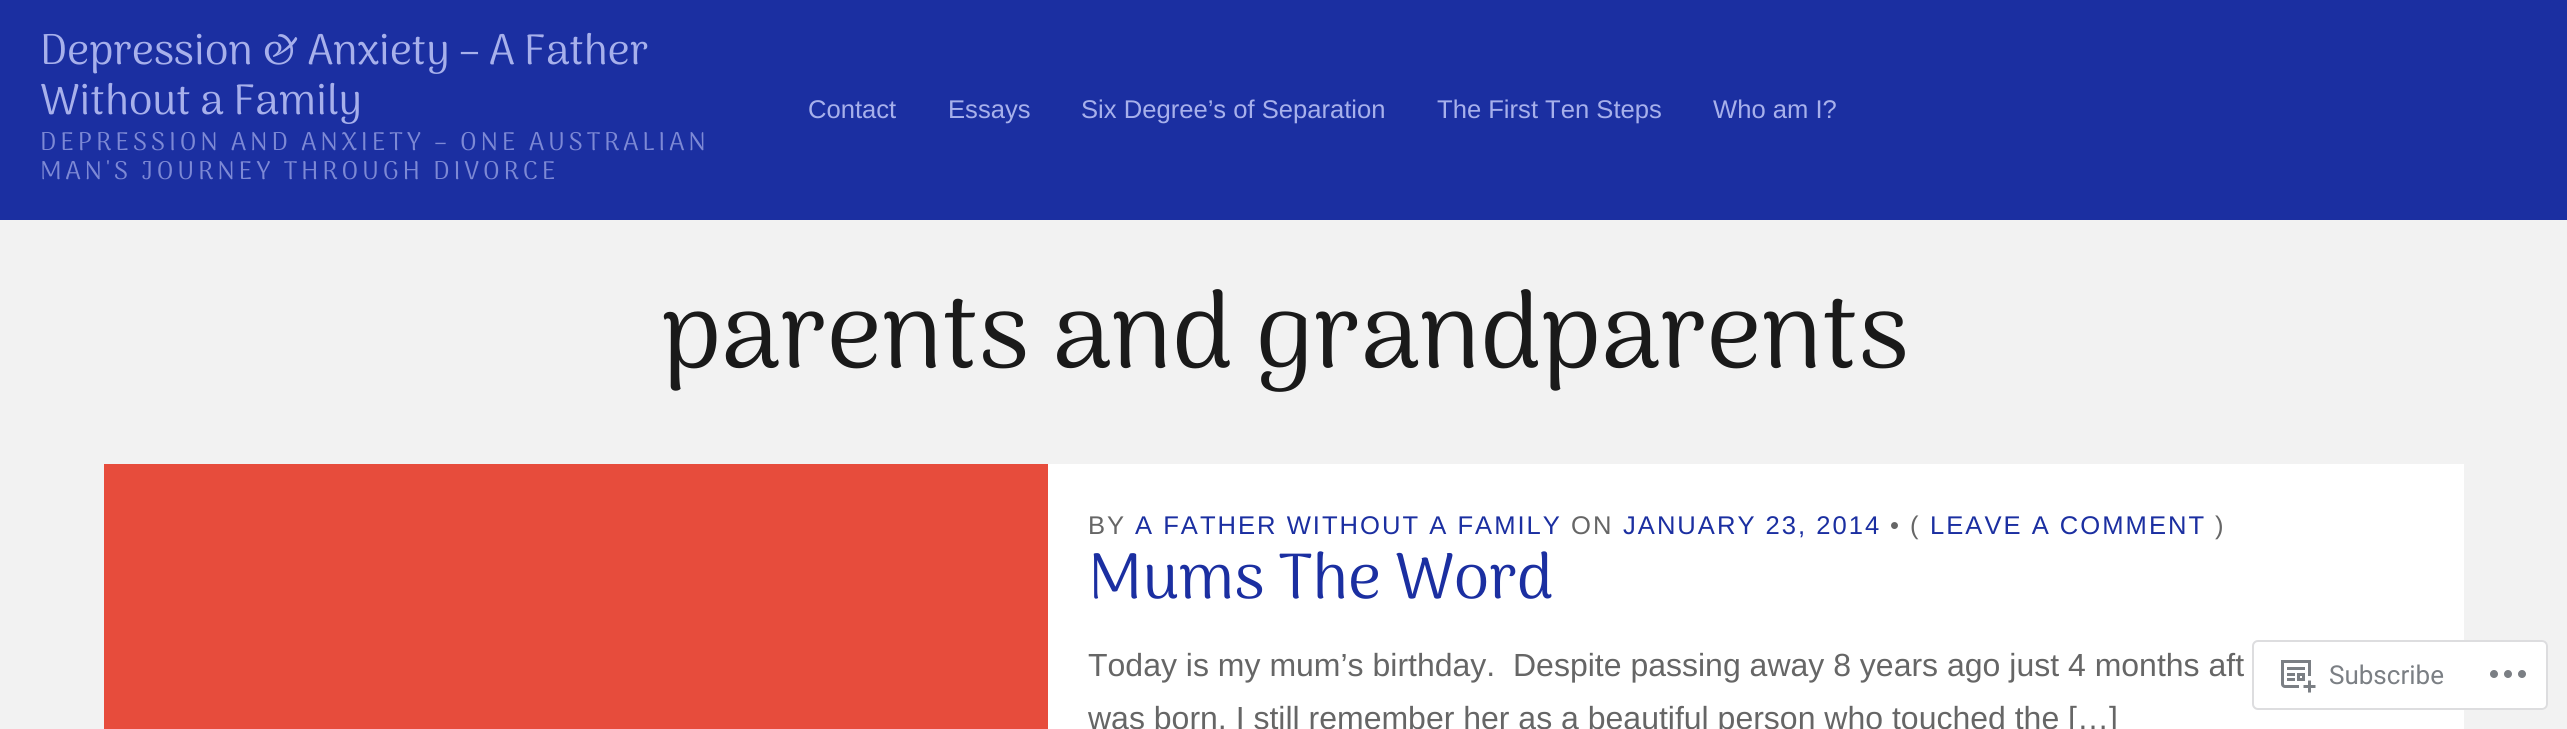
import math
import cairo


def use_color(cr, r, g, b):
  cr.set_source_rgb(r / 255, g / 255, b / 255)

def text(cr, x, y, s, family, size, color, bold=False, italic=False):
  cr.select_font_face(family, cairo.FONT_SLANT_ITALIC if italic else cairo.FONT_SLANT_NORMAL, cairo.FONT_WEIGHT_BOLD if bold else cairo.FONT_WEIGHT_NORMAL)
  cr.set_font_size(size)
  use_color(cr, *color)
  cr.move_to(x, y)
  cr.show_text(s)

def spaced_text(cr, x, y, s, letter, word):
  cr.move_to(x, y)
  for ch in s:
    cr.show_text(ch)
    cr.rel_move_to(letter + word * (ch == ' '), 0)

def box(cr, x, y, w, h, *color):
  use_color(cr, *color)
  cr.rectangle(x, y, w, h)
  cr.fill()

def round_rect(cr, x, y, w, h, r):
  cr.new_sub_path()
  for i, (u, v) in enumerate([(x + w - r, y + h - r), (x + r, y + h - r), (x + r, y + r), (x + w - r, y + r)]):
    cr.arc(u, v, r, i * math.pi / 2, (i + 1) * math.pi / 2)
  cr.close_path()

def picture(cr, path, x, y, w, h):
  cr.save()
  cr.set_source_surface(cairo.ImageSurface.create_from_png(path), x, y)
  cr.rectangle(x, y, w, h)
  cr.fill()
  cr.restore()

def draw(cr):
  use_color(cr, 242, 242, 242)
  cr.paint()
  box(cr, 0, 0, 2567, 220, 27, 47, 161)
  box(cr, 1048, 464, 1416, 265, 255, 255, 255)
  box(cr, 104, 464, 944, 265, 231, 76, 60)
  cr.set_source_rgba(1, 1, 1, 0.98)
  round_rect(cr, 2252, 640, 296, 70, 6)
  cr.fill()
  round_rect(cr, 2253, 641, 294, 68, 5)
  cr.set_source_rgba(0.863, 0.863, 0.871, 0.98)
  cr.stroke()
  picture(cr, "img_01.png", 2281, 660, 35, 33)
  picture(cr, "img_02.png", 2490, 670, 36, 8)
  text(cr, 40, 64, "Depression & Anxiety – A Father", "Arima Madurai", 42.7, (167, 176, 235))
  text(cr, 40, 114, "Without a Family", "Arima Madurai", 42.7, (167, 176, 235))
  cr.set_font_size(25.6)
  use_color(cr, 125, 137, 213)
  spaced_text(cr, 40, 150, "DEPRESSION AND ANXIETY – ONE AUSTRALIAN", 3.85, 0)
  spaced_text(cr, 40, 179, "MAN'S JOURNEY THROUGH DIVORCE", 3.85, 0)
  text(cr, 808, 118, "Contact", "Liberation Sans", 25.6, (167, 176, 235))
  text(cr, 948, 118, "Essays", "Liberation Sans", 25.6, (167, 176, 235))
  text(cr, 1081, 118, "Six Degree’s of Separation", "Liberation Sans", 25.6, (167, 176, 235))
  text(cr, 1437, 118, "The First Ten Steps", "Liberation Sans", 25.6, (167, 176, 235))
  text(cr, 1713, 118, "Who am I?", "Liberation Sans", 25.6, (167, 176, 235))
  text(cr, 661, 367, "parents and grandparents", "Arima Madurai", 106.75, (26, 26, 26))
  cr.select_font_face("Liberation Sans")
  cr.set_font_size(25.6)
  use_color(cr, 102, 102, 102)
  spaced_text(cr, 1088, 534, "BY", 2, 0)
  use_color(cr, 27, 47, 161)
  spaced_text(cr, 1135, 534, "A FATHER WITHOUT A FAMILY", 2, 0)
  use_color(cr, 102, 102, 102)
  spaced_text(cr, 1571, 534, "ON", 2, 0)
  use_color(cr, 27, 47, 161)
  spaced_text(cr, 1623, 534, "JANUARY 23, 2014", 2, 0)
  use_color(cr, 102, 102, 102)
  spaced_text(cr, 1890, 534, "• (", 2, 0)
  use_color(cr, 27, 47, 161)
  spaced_text(cr, 1930, 534, "LEAVE A COMMENT", 2, 0)
  use_color(cr, 102, 102, 102)
  spaced_text(cr, 2215, 534, ")", 2, 0)
  text(cr, 1088, 598, "Mums The Word", "Arima Madurai", 64, (27, 47, 161))
  text(cr, 1088, 676, "Today is my mum’s birthday.  Despite passing away 8 years ago just 4 months aft", "Liberation Sans", 32, (102, 102, 102))
  text(cr, 1088, 729, "was born, I still remember her as a beautiful person who touched the […]", "Liberation Sans", 32, (102, 102, 102))
  text(cr, 2329, 684, "Subscribe", "Roboto", 26, (123, 127, 132))


surface = cairo.ImageSurface(cairo.FORMAT_RGB24, 2567, 729)
cr = cairo.Context(surface)
options = cairo.FontOptions()
options.set_hint_metrics(cairo.HINT_METRICS_OFF)
options.set_hint_style(cairo.HINT_STYLE_NONE)
cr.set_font_options(options)
cr.set_miter_limit(4)
draw(cr)
surface.write_to_png("out.png")
